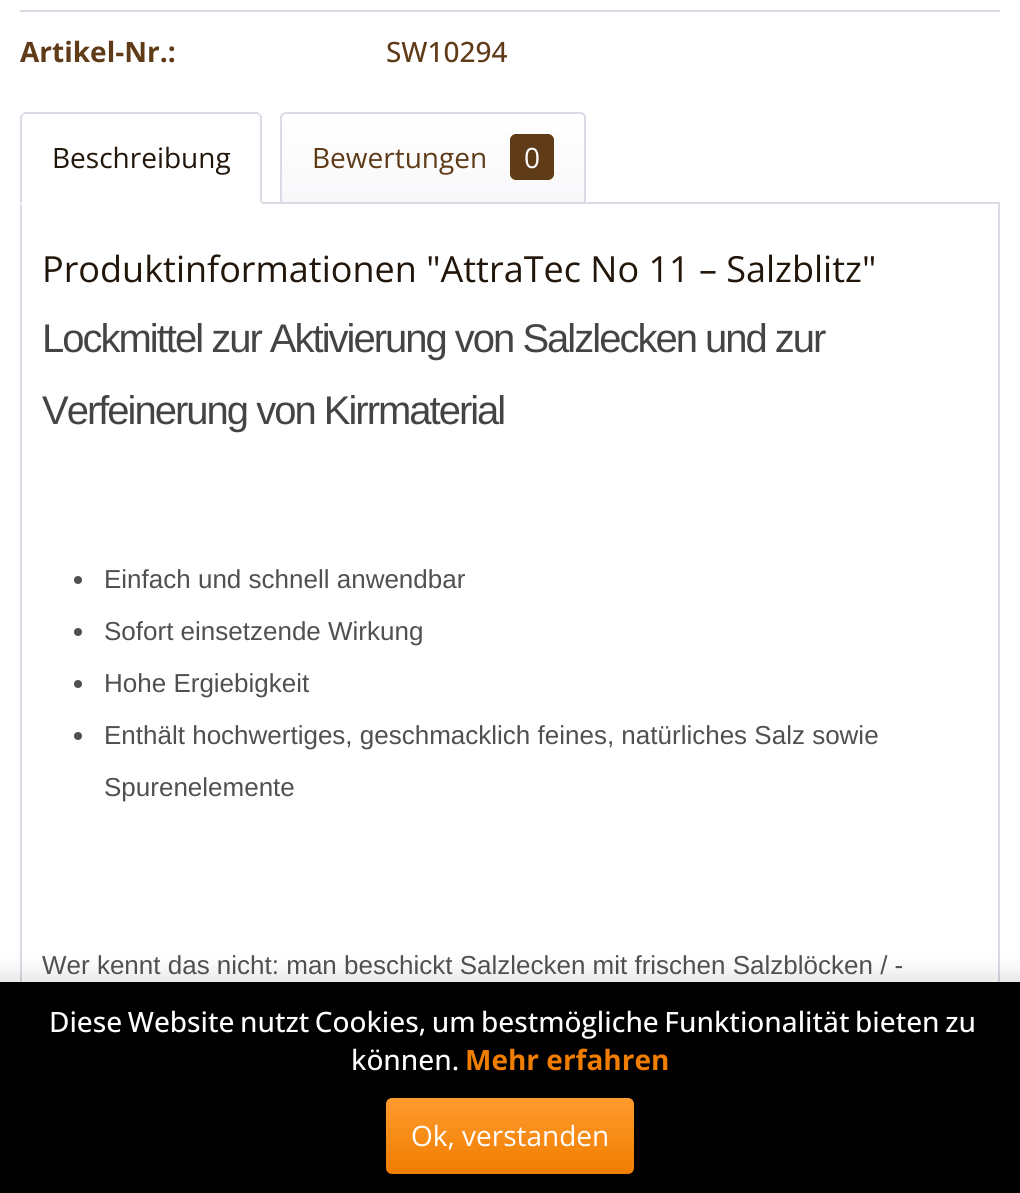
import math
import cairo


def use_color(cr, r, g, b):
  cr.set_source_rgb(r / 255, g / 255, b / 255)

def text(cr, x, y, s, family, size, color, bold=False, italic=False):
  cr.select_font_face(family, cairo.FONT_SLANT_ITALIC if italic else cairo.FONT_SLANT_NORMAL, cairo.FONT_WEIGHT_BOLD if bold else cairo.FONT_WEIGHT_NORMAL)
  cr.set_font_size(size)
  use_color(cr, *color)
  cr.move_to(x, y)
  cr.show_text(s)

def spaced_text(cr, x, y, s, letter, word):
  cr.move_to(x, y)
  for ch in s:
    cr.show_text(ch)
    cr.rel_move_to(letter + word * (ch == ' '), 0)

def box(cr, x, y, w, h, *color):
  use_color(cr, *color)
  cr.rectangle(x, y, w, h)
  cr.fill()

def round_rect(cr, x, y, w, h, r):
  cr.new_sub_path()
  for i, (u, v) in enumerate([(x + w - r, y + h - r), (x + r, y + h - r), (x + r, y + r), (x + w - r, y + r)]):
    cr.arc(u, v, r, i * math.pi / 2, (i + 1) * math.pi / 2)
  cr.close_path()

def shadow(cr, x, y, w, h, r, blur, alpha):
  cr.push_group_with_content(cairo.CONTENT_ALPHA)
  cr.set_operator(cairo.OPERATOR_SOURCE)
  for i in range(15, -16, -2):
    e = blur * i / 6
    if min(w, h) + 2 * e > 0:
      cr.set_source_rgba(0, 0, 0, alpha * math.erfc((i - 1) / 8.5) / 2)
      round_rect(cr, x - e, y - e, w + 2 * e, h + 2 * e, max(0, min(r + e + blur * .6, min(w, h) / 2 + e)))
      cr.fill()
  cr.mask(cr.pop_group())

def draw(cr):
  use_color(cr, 255, 255, 255)
  cr.paint()
  box(cr, 20, 10, 980, 2, 218, 218, 229)
  cr.rectangle(21, 203, 978, 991)
  cr.stroke()
  use_color(cr, 255, 255, 255)
  cr.new_path()
  cr.move_to(26, 112)
  cr.line_to(256, 112)
  cr.curve_to(259.5, 112, 262, 114.5, 262, 118)
  cr.line_to(262, 204)
  cr.line_to(20, 204)
  cr.line_to(20, 118)
  cr.curve_to(20, 114.5, 22.5, 112, 26, 112)
  cr.close_path()
  cr.fill()
  use_color(cr, 218, 218, 229)
  cr.new_path()
  cr.move_to(26, 112)
  cr.curve_to(24, 112, 23, 113, 22, 114)
  cr.line_to(23, 115)
  cr.curve_to(24, 114, 25, 114, 26, 114)
  cr.line_to(256, 114)
  cr.curve_to(257, 114, 258, 114, 259, 115)
  cr.line_to(260, 114)
  cr.curve_to(259, 113, 258, 112, 256, 112)
  cr.close_path()
  cr.fill()
  cr.new_path()
  cr.move_to(262, 204)
  cr.line_to(262, 117)
  cr.line_to(260, 114)
  cr.line_to(259, 115)
  cr.line_to(260, 118)
  cr.line_to(260, 202)
  cr.close_path()
  cr.fill()
  use_color(cr, 255, 255, 255)
  cr.new_path()
  cr.move_to(262, 204)
  cr.line_to(260, 202)
  cr.line_to(22, 202)
  cr.line_to(20, 204)
  cr.close_path()
  cr.fill()
  use_color(cr, 218, 218, 229)
  cr.new_path()
  cr.move_to(20, 204)
  cr.line_to(22, 202)
  cr.line_to(22, 118)
  cr.line_to(23, 115)
  cr.line_to(22, 114)
  cr.curve_to(21, 115, 20, 116, 20, 118)
  cr.close_path()
  cr.fill()
  gradient = cairo.LinearGradient(433, 114, 433, 202)
  gradient.add_color_stop_rgba(0, 1, 1, 1, 1)
  gradient.add_color_stop_rgba(1, 0.973, 0.973, 0.98, 1)
  cr.set_source(gradient)
  cr.new_path()
  cr.move_to(286, 114)
  cr.line_to(580, 114)
  cr.curve_to(582, 114, 584, 116, 584, 118)
  cr.line_to(584, 202)
  cr.line_to(282, 202)
  cr.line_to(282, 118)
  cr.curve_to(282, 116, 284, 114, 286, 114)
  cr.close_path()
  cr.fill()
  cr.new_path()
  cr.move_to(286, 113)
  cr.line_to(580, 113)
  cr.curve_to(583, 113, 585, 115, 585, 118)
  cr.line_to(585, 203)
  cr.line_to(281, 203)
  cr.line_to(281, 118)
  cr.curve_to(281, 115, 283, 113, 286, 113)
  cr.close_path()
  use_color(cr, 218, 218, 229)
  cr.stroke()
  use_color(cr, 95, 59, 24)
  round_rect(cr, 510, 134, 44, 46, 6)
  cr.fill()
  use_color(cr, 80, 80, 80)
  cr.arc(78, 580, 4, 0, 2 * math.pi)
  cr.fill()
  cr.arc(78, 632, 4, 0, 2 * math.pi)
  cr.fill()
  cr.arc(78, 684, 4, 0, 2 * math.pi)
  cr.fill()
  cr.arc(78, 736, 4, 0, 2 * math.pi)
  cr.fill()
  use_color(cr, 0, 0, 0)
  shadow(cr, -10, 972, 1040, 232, 0, 10, 0.1)
  box(cr, 0, 982, 1020, 211, 0, 0, 0)
  gradient = cairo.LinearGradient(510, 1098, 510, 1174)
  gradient.add_color_stop_rgba(0, 1, 0.608, 0.18, 1)
  gradient.add_color_stop_rgba(1, 0.941, 0.49, 0, 1)
  cr.set_source(gradient)
  round_rect(cr, 386, 1098, 248, 76, 6)
  cr.fill()
  text(cr, 20, 62, "Artikel-Nr.:", "Open Sans", 28, (95, 59, 24), bold=True)
  text(cr, 386, 62, "SW10294", "Open Sans Medium", 28, (95, 59, 24))
  text(cr, 52, 168, "Beschreibung", "Open Sans", 28, (34, 21, 9))
  text(cr, 312, 168, "Bewertungen", "Open Sans", 28, (95, 59, 24))
  text(cr, 524, 168, "0", "Open Sans", 28, (255, 255, 255))
  text(cr, 42, 282, "Produktinformationen \"AttraTec No 11 – Salzblitz\"", "Open Sans", 36, (34, 21, 9))
  cr.select_font_face("Liberation Sans")
  cr.set_font_size(40)
  use_color(cr, 68, 68, 68)
  spaced_text(cr, 42, 352, "Lockmittel zur Aktivierung von Salzlecken und zur", -2, 0)
  spaced_text(cr, 42, 424, "Verfeinerung von Kirrmaterial", -2, 0)
  text(cr, 104, 588, "Einfach und schnell anwendbar", "Liberation Sans", 26, (80, 80, 80))
  text(cr, 104, 640, "Sofort einsetzende Wirkung", "Liberation Sans", 26, (80, 80, 80))
  text(cr, 104, 692, "Hohe Ergiebigkeit", "Liberation Sans", 26, (80, 80, 80))
  text(cr, 104, 744, "Enthält hochwertiges, geschmacklich feines, natürliches Salz sowie", "Liberation Sans", 26, (80, 80, 80))
  text(cr, 104, 796, "Spurenelemente", "Liberation Sans", 26, (80, 80, 80))
  text(cr, 42, 974, "Wer kennt das nicht: man beschickt Salzlecken mit frischen Salzblöcken / -", "Liberation Sans", 26, (80, 80, 80))
  cr.select_font_face("Open Sans Medium")
  cr.set_font_size(28)
  use_color(cr, 255, 255, 255)
  spaced_text(cr, 49, 1032, "Diese Website nutzt Cookies, um bestmögliche Funktionalität bieten zu", 0, -1.75)
  text(cr, 351, 1070, "können.", "Open Sans Medium", 28, (255, 255, 255))
  text(cr, 465, 1070, "Mehr erfahren", "Open Sans", 28, (240, 125, 0), bold=True)
  text(cr, 411, 1146, "Ok, verstanden", "Open Sans", 28, (255, 255, 255))


surface = cairo.ImageSurface(cairo.FORMAT_RGB24, 1020, 1193)
cr = cairo.Context(surface)
options = cairo.FontOptions()
options.set_hint_metrics(cairo.HINT_METRICS_OFF)
options.set_hint_style(cairo.HINT_STYLE_NONE)
cr.set_font_options(options)
cr.set_miter_limit(4)
draw(cr)
surface.write_to_png("out.png")
